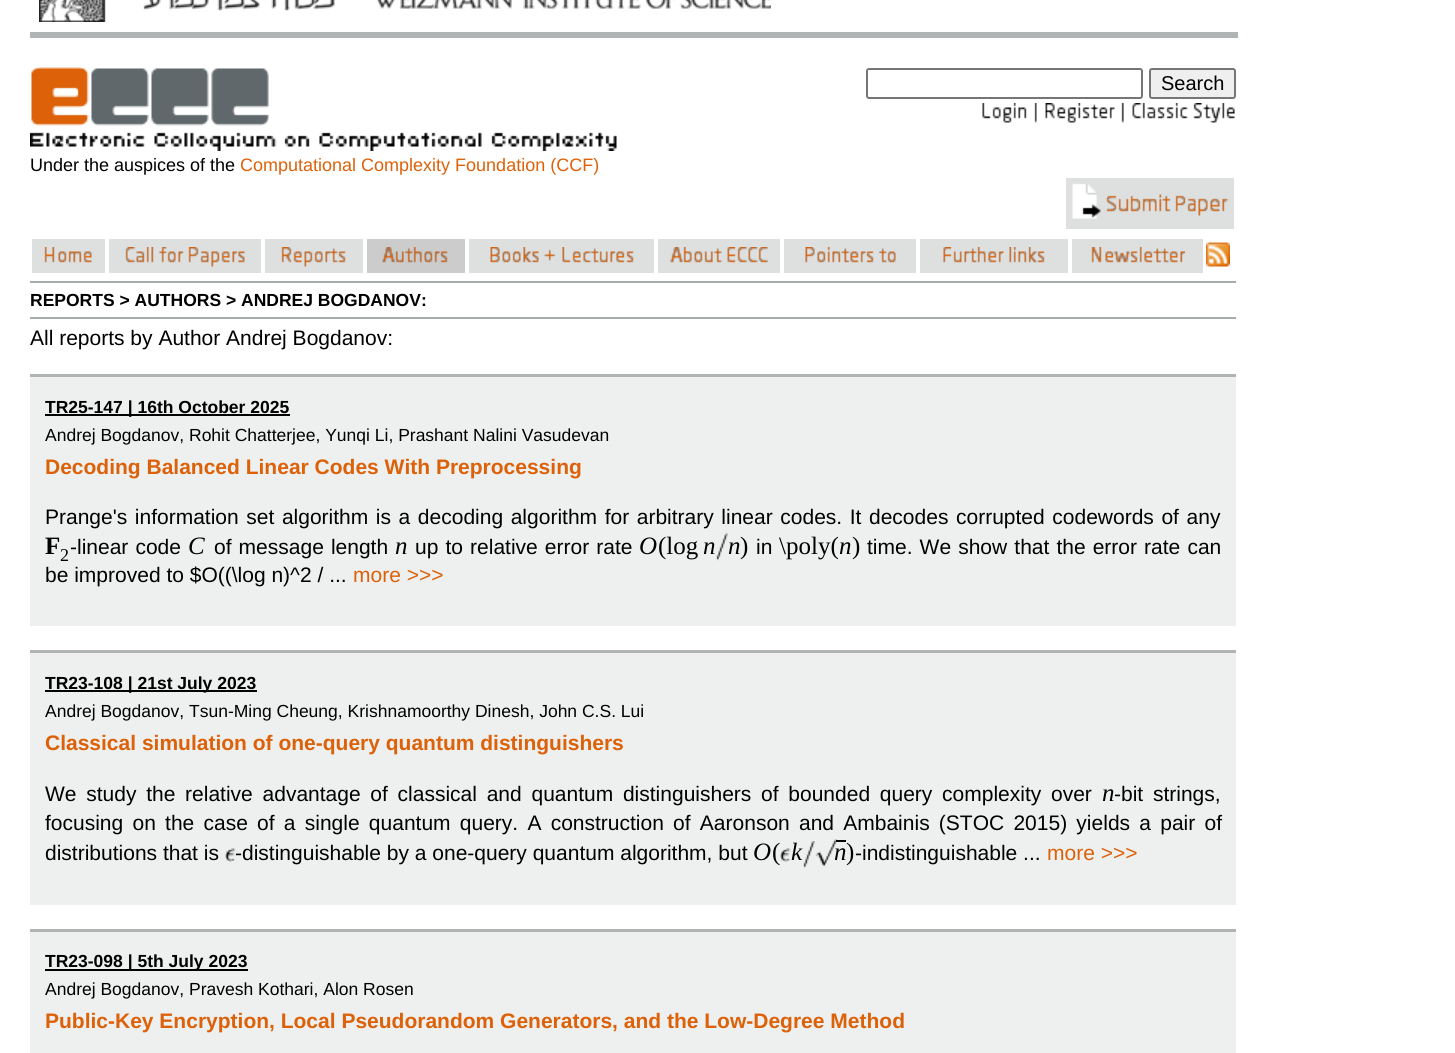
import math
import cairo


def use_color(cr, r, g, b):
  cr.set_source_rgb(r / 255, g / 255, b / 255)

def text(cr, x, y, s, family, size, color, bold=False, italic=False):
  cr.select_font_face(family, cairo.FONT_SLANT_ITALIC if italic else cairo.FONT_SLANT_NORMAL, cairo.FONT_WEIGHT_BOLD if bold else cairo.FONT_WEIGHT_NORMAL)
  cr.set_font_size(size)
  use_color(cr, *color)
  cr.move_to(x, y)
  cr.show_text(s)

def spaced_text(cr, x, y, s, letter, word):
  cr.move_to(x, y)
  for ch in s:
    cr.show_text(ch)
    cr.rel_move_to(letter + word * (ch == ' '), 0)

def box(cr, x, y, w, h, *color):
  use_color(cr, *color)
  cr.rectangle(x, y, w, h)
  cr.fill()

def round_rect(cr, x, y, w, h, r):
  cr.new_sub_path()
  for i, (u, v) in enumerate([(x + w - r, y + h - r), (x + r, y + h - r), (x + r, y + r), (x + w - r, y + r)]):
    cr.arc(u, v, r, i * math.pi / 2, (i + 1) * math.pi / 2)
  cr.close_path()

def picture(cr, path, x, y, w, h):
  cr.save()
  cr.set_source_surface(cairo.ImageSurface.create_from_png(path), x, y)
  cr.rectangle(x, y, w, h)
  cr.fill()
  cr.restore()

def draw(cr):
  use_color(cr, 255, 255, 255)
  cr.paint()
  box(cr, 30, 32, 1208, 6, 176, 180, 181)
  picture(cr, "img_01.png", 39, 0, 732, 22)
  round_rect(cr, 867, 69, 275, 29, 2)
  use_color(cr, 118, 118, 118)
  cr.stroke()
  use_color(cr, 239, 239, 239)
  round_rect(cr, 1150, 69, 85, 29, 2)
  cr.fill_preserve()
  use_color(cr, 118, 118, 118)
  cr.stroke()
  picture(cr, "img_02.png", 982, 103, 45, 20)
  picture(cr, "img_03.png", 1034, 103, 3, 20)
  picture(cr, "img_04.png", 1045, 103, 70, 20)
  picture(cr, "img_05.png", 1121, 103, 3, 20)
  picture(cr, "img_06.png", 1132, 103, 103, 20)
  picture(cr, "img_07.png", 31, 67, 238, 59)
  picture(cr, "img_08.png", 30, 132, 587, 19)
  box(cr, 1066, 178, 168, 51, 222, 224, 224)
  picture(cr, "img_09.png", 1072, 183, 29, 36)
  picture(cr, "img_10.png", 1106, 194, 123, 22)
  box(cr, 32, 239, 73, 34, 222, 224, 224)
  picture(cr, "img_11.png", 44, 247, 48, 16)
  box(cr, 109, 239, 152, 34, 222, 224, 224)
  picture(cr, "img_12.png", 125, 247, 120, 20)
  box(cr, 265, 239, 98, 34, 222, 224, 224)
  picture(cr, "img_13.png", 281, 247, 65, 20)
  box(cr, 367, 239, 98, 34, 204, 204, 204)
  picture(cr, "img_14.png", 382, 247, 66, 16)
  box(cr, 469, 239, 185, 34, 222, 224, 224)
  picture(cr, "img_15.png", 490, 247, 144, 16)
  box(cr, 658, 239, 122, 34, 222, 224, 224)
  picture(cr, "img_16.png", 670, 247, 98, 16)
  box(cr, 784, 239, 132, 34, 222, 224, 224)
  picture(cr, "img_17.png", 805, 247, 91, 16)
  box(cr, 920, 239, 148, 34, 222, 224, 224)
  picture(cr, "img_18.png", 943, 247, 102, 16)
  box(cr, 1072, 239, 131, 34, 222, 224, 224)
  picture(cr, "img_19.png", 1091, 247, 94, 16)
  picture(cr, "img_20.png", 1206, 242, 24, 25)
  box(cr, 30, 281, 1206, 2, 167, 172, 173)
  box(cr, 30, 317, 1206, 2, 167, 172, 173)
  box(cr, 30, 377, 1206, 249, 238, 239, 239)
  box(cr, 30, 374, 1206, 3, 176, 180, 181)
  box(cr, 45, 414, 245, 2, 0, 0, 0)
  picture(cr, "img_21.png", 716, 533, 12, 28)
  box(cr, 30, 653, 1206, 252, 238, 239, 239)
  box(cr, 30, 650, 1206, 3, 176, 180, 181)
  box(cr, 45, 690, 212, 2, 0, 0, 0)
  picture(cr, "img_22.png", 225, 848, 11, 14)
  picture(cr, "img_22.png", 780, 848, 11, 14)
  picture(cr, "img_23.png", 803, 841, 12, 27)
  picture(cr, "img_24.png", 815, 839, 22, 28)
  box(cr, 836, 840, 10, 2, 0, 0, 0)
  box(cr, 30, 932, 1206, 121, 238, 239, 239)
  box(cr, 30, 929, 1206, 3, 176, 180, 181)
  box(cr, 45, 969, 203, 2, 0, 0, 0)
  text(cr, 1161, 90, "Search", "Liberation Sans", 20, (0, 0, 0))
  text(cr, 30, 171, "Under the auspices of the", "Liberation Sans", 18, (0, 0, 0))
  text(cr, 240, 171, "Computational Complexity Foundation (CCF)", "Liberation Sans", 18, (220, 97, 8))
  text(cr, 30, 306, "REPORTS > AUTHORS > ANDREJ BOGDANOV:", "Liberation Sans", 17.5, (0, 0, 0), bold=True)
  text(cr, 30, 345, "All reports by Author Andrej Bogdanov:", "Liberation Sans", 21, (0, 0, 0))
  text(cr, 45, 413, "TR25-147 | 16th October 2025", "Liberation Sans", 17.5, (0, 0, 0), bold=True)
  text(cr, 45, 441, "Andrej Bogdanov, Rohit Chatterjee, Yunqi Li, Prashant Nalini Vasudevan", "Liberation Sans", 17.5, (0, 0, 0))
  text(cr, 45, 474, "Decoding Balanced Linear Codes With Preprocessing", "Liberation Sans", 21, (220, 97, 8), bold=True)
  cr.select_font_face("Liberation Sans")
  use_color(cr, 0, 0, 0)
  spaced_text(cr, 45, 524, "Prange's information set algorithm is a decoding algorithm for arbitrary linear codes. It decodes corrupted codewords of any", 0, 1.75)
  text(cr, 45, 554, "F", "Liberation Serif", 25, (0, 0, 0), bold=True)
  text(cr, 60, 561, "2", "Liberation Serif", 18, (0, 0, 0))
  cr.select_font_face("Liberation Sans")
  cr.set_font_size(21)
  spaced_text(cr, 70, 554, "-linear code", 0, 1.25)
  text(cr, 188, 554, "C", "Liberation Serif", 25, (0, 0, 0), italic=True)
  cr.select_font_face("Liberation Sans")
  cr.set_font_size(21)
  spaced_text(cr, 214, 554, "of message length", 0, 1.25)
  text(cr, 395, 554, "n", "Liberation Serif", 25, (0, 0, 0), italic=True)
  cr.select_font_face("Liberation Sans")
  cr.set_font_size(21)
  spaced_text(cr, 415, 554, "up to relative error rate", 0, 1.25)
  text(cr, 639, 554, "O", "Liberation Serif", 25, (0, 0, 0), italic=True)
  text(cr, 658, 554, "(log", "Liberation Serif", 25, (0, 0, 0))
  text(cr, 703, 554, "n", "Liberation Serif", 25, (0, 0, 0), italic=True)
  text(cr, 728, 554, "n", "Liberation Serif", 25, (0, 0, 0), italic=True)
  text(cr, 740, 554, ")", "Liberation Serif", 25, (0, 0, 0))
  text(cr, 756, 554, "in", "Liberation Sans", 21, (0, 0, 0))
  text(cr, 779, 554, "\\poly(", "Liberation Serif", 25, (0, 0, 0))
  text(cr, 839, 554, "n", "Liberation Serif", 25, (0, 0, 0), italic=True)
  text(cr, 852, 554, ")", "Liberation Serif", 25, (0, 0, 0))
  cr.select_font_face("Liberation Sans")
  cr.set_font_size(21)
  spaced_text(cr, 867, 554, "time. We show that the error rate can", 0, 1.25)
  text(cr, 45, 582, "be improved to $O((\\log n)^2 / ...", "Liberation Sans", 21, (0, 0, 0))
  text(cr, 353, 582, "more >>>", "Liberation Sans", 21, (220, 97, 8))
  text(cr, 45, 689, "TR23-108 | 21st July 2023", "Liberation Sans", 17.5, (0, 0, 0), bold=True)
  text(cr, 45, 717, "Andrej Bogdanov, Tsun-Ming Cheung, Krishnamoorthy Dinesh, John C.S. Lui", "Liberation Sans", 17.5, (0, 0, 0))
  text(cr, 45, 750, "Classical simulation of one-query quantum distinguishers", "Liberation Sans", 21, (220, 97, 8), bold=True)
  cr.select_font_face("Liberation Sans")
  use_color(cr, 0, 0, 0)
  spaced_text(cr, 45, 801, "We study the relative advantage of classical and quantum distinguishers of bounded query complexity over", 0, 3.9)
  text(cr, 1102, 801, "n", "Liberation Serif", 25, (0, 0, 0), italic=True)
  cr.select_font_face("Liberation Sans")
  cr.set_font_size(21)
  spaced_text(cr, 1114, 801, "-bit strings,", 0, 3.9)
  spaced_text(cr, 45, 830, "focusing on the case of a single quantum query. A construction of Aaronson and Ambainis (STOC 2015) yields a pair of", 0, 3.4)
  text(cr, 45, 860, "distributions that is", "Liberation Sans", 21, (0, 0, 0))
  text(cr, 235, 860, "-distinguishable by a one-query quantum algorithm, but", "Liberation Sans", 21, (0, 0, 0))
  text(cr, 753, 860, "O", "Liberation Serif", 25, (0, 0, 0), italic=True)
  text(cr, 772, 860, "(", "Liberation Serif", 25, (0, 0, 0))
  text(cr, 791, 860, "k", "Liberation Serif", 25, (0, 0, 0), italic=True)
  text(cr, 846, 860, ")", "Liberation Serif", 25, (0, 0, 0))
  text(cr, 834, 860, "n", "Liberation Serif", 25, (0, 0, 0), italic=True)
  text(cr, 855, 860, "-indistinguishable ...", "Liberation Sans", 21, (0, 0, 0))
  text(cr, 1047, 860, "more >>>", "Liberation Sans", 21, (220, 97, 8))
  text(cr, 45, 967, "TR23-098 | 5th July 2023", "Liberation Sans", 17.5, (0, 0, 0), bold=True)
  text(cr, 45, 995, "Andrej Bogdanov, Pravesh Kothari, Alon Rosen", "Liberation Sans", 17.5, (0, 0, 0))
  text(cr, 45, 1028, "Public-Key Encryption, Local Pseudorandom Generators, and the Low-Degree Method", "Liberation Sans", 21, (220, 97, 8), bold=True)


surface = cairo.ImageSurface(cairo.FORMAT_RGB24, 1455, 1053)
cr = cairo.Context(surface)
options = cairo.FontOptions()
options.set_hint_metrics(cairo.HINT_METRICS_OFF)
options.set_hint_style(cairo.HINT_STYLE_NONE)
cr.set_font_options(options)
cr.set_miter_limit(4)
draw(cr)
surface.write_to_png("out.png")
